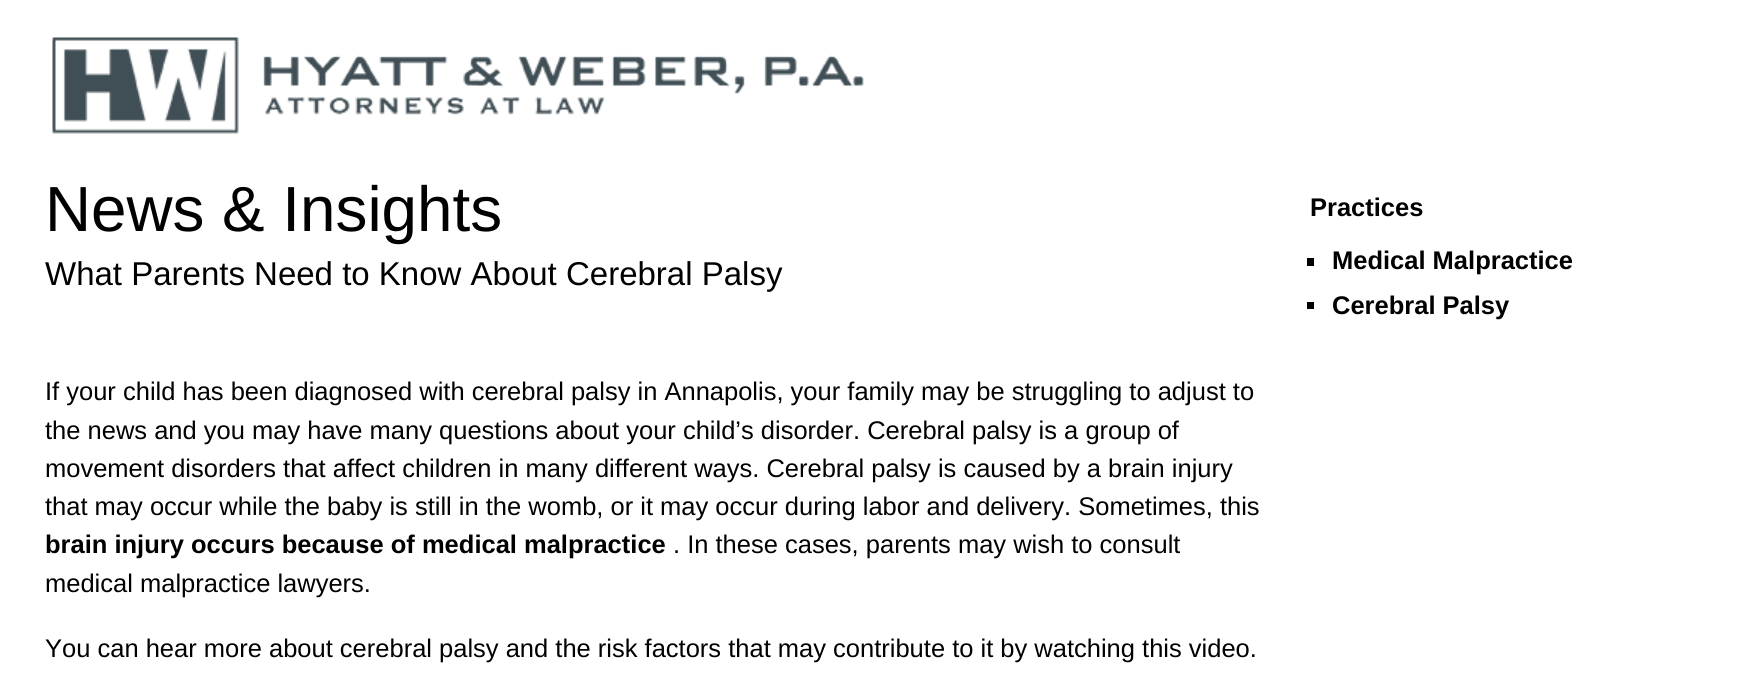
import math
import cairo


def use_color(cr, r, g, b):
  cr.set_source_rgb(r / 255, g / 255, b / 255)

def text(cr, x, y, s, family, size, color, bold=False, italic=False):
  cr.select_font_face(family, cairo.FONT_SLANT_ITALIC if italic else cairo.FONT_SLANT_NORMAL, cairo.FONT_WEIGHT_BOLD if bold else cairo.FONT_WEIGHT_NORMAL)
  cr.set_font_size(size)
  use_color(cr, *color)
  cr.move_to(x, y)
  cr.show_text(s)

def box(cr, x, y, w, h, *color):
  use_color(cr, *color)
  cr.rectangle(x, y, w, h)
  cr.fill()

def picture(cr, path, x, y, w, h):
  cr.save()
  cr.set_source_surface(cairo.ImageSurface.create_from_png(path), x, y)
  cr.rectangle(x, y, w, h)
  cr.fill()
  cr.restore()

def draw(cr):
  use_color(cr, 255, 255, 255)
  cr.paint()
  picture(cr, "img_01.png", 52, 37, 812, 97)
  box(cr, 1307, 258, 7, 8, 0, 0, 0)
  box(cr, 1307, 302, 7, 7, 0, 0, 0)
  text(cr, 45, 231, "News & Insights", "Liberation Sans", 63.75, (0, 0, 0))
  text(cr, 45, 285, "What Parents Need to Know About Cerebral Palsy", "Liberation Sans", 33, (0, 0, 0))
  text(cr, 45, 400, "If your child has been diagnosed with cerebral palsy in Annapolis, your family may be struggling to adjust to", "Liberation Sans", 25.5, (0, 0, 0))
  text(cr, 45, 439, "the news and you may have many questions about your child’s disorder. Cerebral palsy is a group of", "Liberation Sans", 25.5, (0, 0, 0))
  text(cr, 45, 477, "movement disorders that affect children in many different ways. Cerebral palsy is caused by a brain injury", "Liberation Sans", 25.5, (0, 0, 0))
  text(cr, 45, 515, "that may occur while the baby is still in the womb, or it may occur during labor and delivery. Sometimes, this", "Liberation Sans", 25.5, (0, 0, 0))
  text(cr, 45, 553, "brain injury occurs because of medical malpractice", "Liberation Sans", 25.5, (0, 0, 0), bold=True)
  text(cr, 673, 553, ". In these cases, parents may wish to consult", "Liberation Sans", 25.5, (0, 0, 0))
  text(cr, 45, 592, "medical malpractice lawyers.", "Liberation Sans", 25.5, (0, 0, 0))
  text(cr, 45, 657, "You can hear more about cerebral palsy and the risk factors that may contribute to it by watching this video.", "Liberation Sans", 25.5, (0, 0, 0))
  text(cr, 1310, 216, "Practices", "Liberation Sans", 25.5, (0, 0, 0), bold=True)
  text(cr, 1332, 269, "Medical Malpractice", "Liberation Sans", 25.5, (0, 0, 0), bold=True)
  text(cr, 1332, 314, "Cerebral Palsy", "Liberation Sans", 25.5, (0, 0, 0), bold=True)


surface = cairo.ImageSurface(cairo.FORMAT_RGB24, 1741, 675)
cr = cairo.Context(surface)
options = cairo.FontOptions()
options.set_hint_metrics(cairo.HINT_METRICS_OFF)
options.set_hint_style(cairo.HINT_STYLE_NONE)
cr.set_font_options(options)
cr.set_miter_limit(4)
draw(cr)
surface.write_to_png("out.png")
